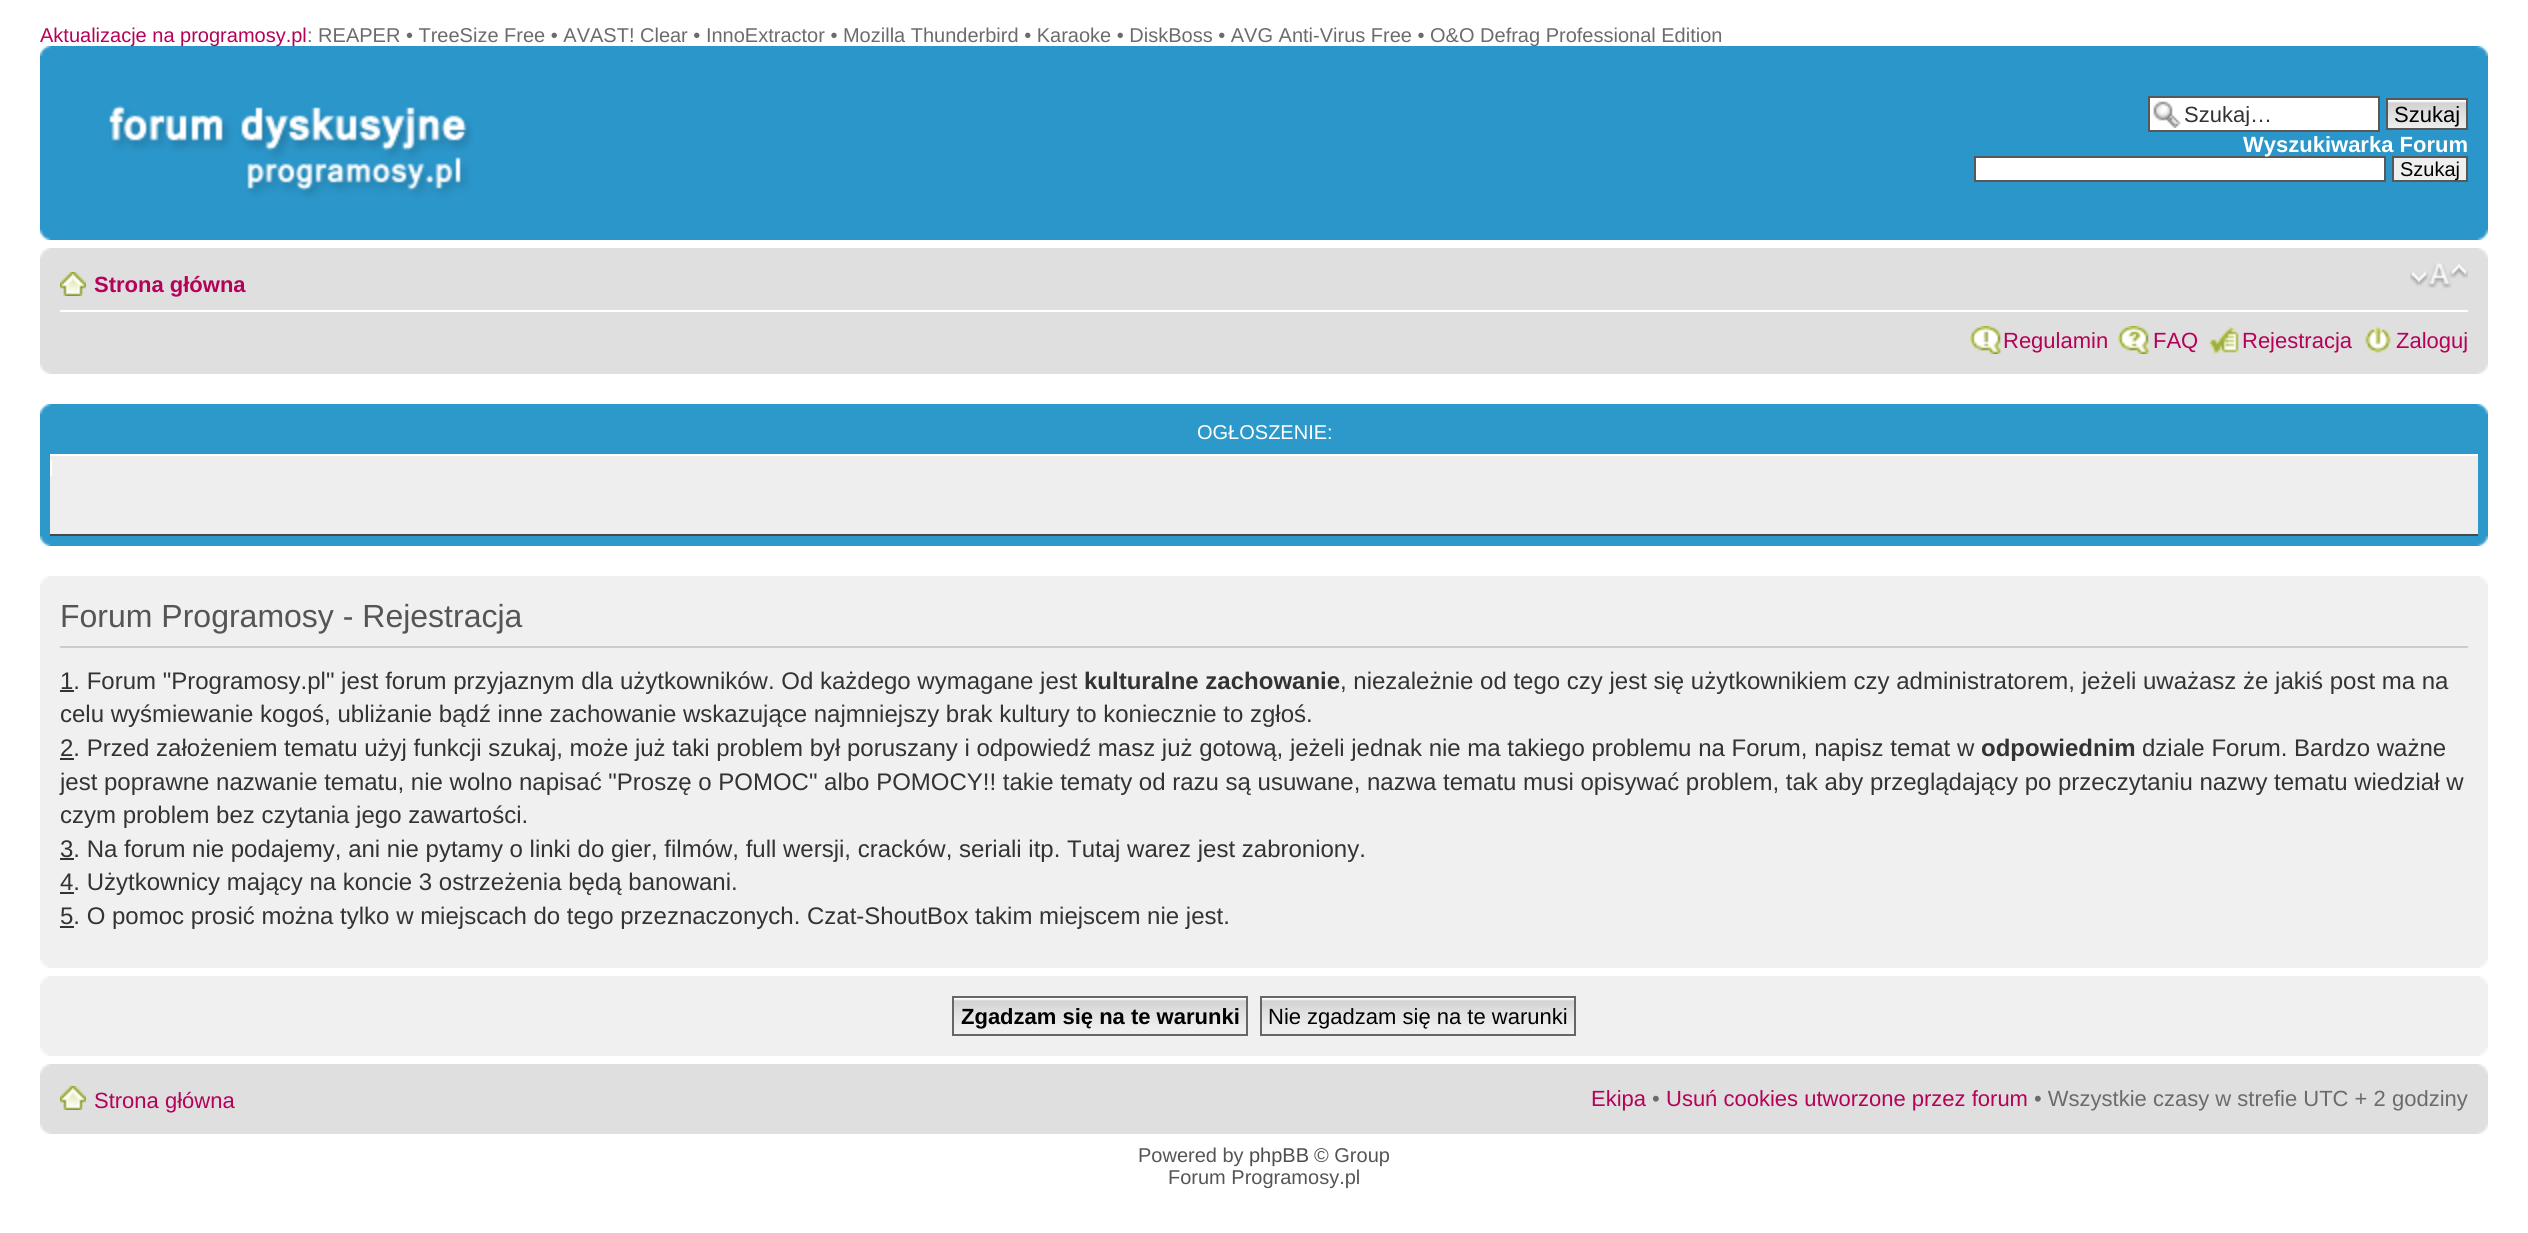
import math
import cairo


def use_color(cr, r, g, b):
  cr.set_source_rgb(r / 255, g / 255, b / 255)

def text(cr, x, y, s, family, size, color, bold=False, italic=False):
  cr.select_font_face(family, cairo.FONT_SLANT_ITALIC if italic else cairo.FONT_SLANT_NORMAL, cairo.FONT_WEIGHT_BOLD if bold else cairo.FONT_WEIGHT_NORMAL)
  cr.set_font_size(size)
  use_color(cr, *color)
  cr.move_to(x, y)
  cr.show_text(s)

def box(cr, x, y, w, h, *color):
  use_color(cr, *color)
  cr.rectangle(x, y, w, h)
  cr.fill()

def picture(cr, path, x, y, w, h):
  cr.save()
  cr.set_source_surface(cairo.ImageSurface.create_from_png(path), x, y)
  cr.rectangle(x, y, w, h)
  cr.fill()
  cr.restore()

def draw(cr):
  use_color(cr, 255, 255, 255)
  cr.paint()
  box(cr, 40, 46, 2448, 194, 43, 150, 202)
  picture(cr, "img_01.png", 40, 46, 12, 10)
  picture(cr, "img_02.png", 2476, 46, 12, 10)
  picture(cr, "img_03.png", 109, 105, 364, 94)
  box(cr, 2150, 98, 228, 32, 255, 255, 255)
  picture(cr, "img_04.png", 2153, 101, 28, 27)
  cr.rectangle(2149, 97, 230, 34)
  use_color(cr, 88, 88, 88)
  cr.stroke()
  picture(cr, "img_05.png", 2388, 100, 78, 28)
  cr.rectangle(2387, 99, 80, 30)
  cr.stroke()
  use_color(cr, 255, 255, 255)
  cr.rectangle(1975, 157, 410, 24)
  cr.fill_preserve()
  use_color(cr, 88, 88, 88)
  cr.stroke()
  picture(cr, "img_06.png", 40, 230, 11, 10)
  picture(cr, "img_07.png", 2477, 230, 11, 10)
  box(cr, 40, 248, 2448, 126, 223, 223, 223)
  picture(cr, "img_08.png", 40, 248, 10, 10)
  picture(cr, "img_09.png", 2478, 248, 10, 10)
  box(cr, 60, 310, 2408, 2, 255, 255, 255)
  picture(cr, "img_10.png", 60, 272, 26, 24)
  picture(cr, "img_11.png", 2410, 263, 58, 26)
  picture(cr, "img_12.png", 1970, 326, 32, 28)
  picture(cr, "img_13.png", 2118, 326, 32, 28)
  picture(cr, "img_14.png", 2209, 327, 30, 27)
  picture(cr, "img_15.png", 2365, 327, 26, 26)
  picture(cr, "img_16.png", 40, 364, 10, 10)
  picture(cr, "img_17.png", 2478, 364, 10, 10)
  box(cr, 40, 404, 2448, 142, 45, 153, 203)
  picture(cr, "img_18.png", 40, 404, 12, 10)
  picture(cr, "img_19.png", 2476, 404, 12, 10)
  box(cr, 50, 456, 2428, 78, 238, 238, 238)
  box(cr, 50, 454, 2428, 2, 255, 255, 255)
  box(cr, 50, 534, 2428, 2, 72, 72, 72)
  box(cr, 50, 460, 2, 16, 255, 255, 255)
  picture(cr, "img_20.png", 40, 536, 11, 10)
  picture(cr, "img_21.png", 2477, 536, 11, 10)
  box(cr, 40, 576, 2448, 392, 240, 240, 240)
  picture(cr, "img_22.png", 40, 576, 9, 9)
  picture(cr, "img_23.png", 2479, 576, 9, 9)
  box(cr, 60, 646, 2408, 2, 204, 204, 204)
  box(cr, 60, 690, 14, 2, 51, 51, 51)
  box(cr, 60, 758, 14, 2, 51, 51, 51)
  box(cr, 60, 858, 14, 2, 51, 51, 51)
  box(cr, 60, 892, 14, 2, 51, 51, 51)
  box(cr, 60, 926, 14, 2, 51, 51, 51)
  picture(cr, "img_24.png", 40, 959, 9, 9)
  picture(cr, "img_25.png", 2479, 959, 9, 9)
  box(cr, 40, 976, 2448, 80, 240, 240, 240)
  picture(cr, "img_22.png", 40, 976, 9, 9)
  picture(cr, "img_23.png", 2479, 976, 9, 9)
  picture(cr, "img_26.png", 954, 998, 292, 36)
  cr.rectangle(953, 997, 294, 38)
  use_color(cr, 102, 102, 102)
  cr.stroke()
  picture(cr, "img_27.png", 1262, 998, 312, 36)
  cr.rectangle(1261, 997, 314, 38)
  cr.stroke()
  picture(cr, "img_24.png", 40, 1047, 9, 9)
  picture(cr, "img_25.png", 2479, 1047, 9, 9)
  box(cr, 40, 1064, 2448, 70, 223, 223, 223)
  picture(cr, "img_08.png", 40, 1064, 10, 10)
  picture(cr, "img_09.png", 2478, 1064, 10, 10)
  picture(cr, "img_10.png", 60, 1086, 26, 24)
  picture(cr, "img_16.png", 40, 1124, 10, 10)
  picture(cr, "img_17.png", 2478, 1124, 10, 10)
  text(cr, 40, 42, "Aktualizacje na programosy.pl", "Liberation Sans", 20, (181, 1, 88))
  text(cr, 307, 42, ": REAPER • TreeSize Free • AVAST! Clear • InnoExtractor • Mozilla Thunderbird • Karaoke • DiskBoss • AVG Anti-Virus Free • O&O Defrag Professional Edition", "Liberation Sans", 20, (107, 107, 107))
  cr.save()
  cr.rectangle(2184, 102, 190, 24)
  cr.clip()
  text(cr, 2184, 122, "Szukaj…", "Liberation Sans", 22, (51, 51, 51))
  cr.restore()
  text(cr, 2394, 122, "Szukaj", "Liberation Sans", 22, (0, 0, 0))
  text(cr, 2243, 152, "Wyszukiwarka Forum", "Liberation Sans", 22, (255, 255, 255), bold=True)
  use_color(cr, 239, 239, 239)
  cr.rectangle(2393, 157, 74, 24)
  cr.fill_preserve()
  use_color(cr, 88, 88, 88)
  cr.stroke()
  text(cr, 2400, 176, "Szukaj", "Liberation Sans", 20, (0, 0, 0))
  text(cr, 94, 292, "Strona główna", "Liberation Sans", 22, (181, 1, 88), bold=True)
  text(cr, 2003, 348, "Regulamin", "Liberation Sans", 22, (181, 1, 88))
  text(cr, 2153, 348, "FAQ", "Liberation Sans", 22, (181, 1, 88))
  text(cr, 2242, 348, "Rejestracja", "Liberation Sans", 22, (181, 1, 88))
  text(cr, 2396, 348, "Zaloguj", "Liberation Sans", 22, (181, 1, 88))
  text(cr, 1197, 439, "OGŁOSZENIE:", "Liberation Sans", 20, (255, 255, 255))
  text(cr, 60, 627, "Forum Programosy - Rejestracja", "Liberation Sans", 32, (85, 85, 85))
  text(cr, 60, 689, "1. Forum \"Programosy.pl\" jest forum przyjaznym dla użytkowników. Od każdego wymagane jest", "Liberation Sans", 24, (51, 51, 51))
  text(cr, 1084, 689, "kulturalne zachowanie", "Liberation Sans", 24, (51, 51, 51), bold=True)
  text(cr, 1340, 689, ", niezależnie od tego czy jest się użytkownikiem czy administratorem, jeżeli uważasz że jakiś post ma na", "Liberation Sans", 24, (51, 51, 51))
  text(cr, 60, 722, "celu wyśmiewanie kogoś, ubliżanie bądź inne zachowanie wskazujące najmniejszy brak kultury to koniecznie to zgłoś.", "Liberation Sans", 24, (51, 51, 51))
  text(cr, 60, 756, "2. Przed założeniem tematu użyj funkcji szukaj, może już taki problem był poruszany i odpowiedź masz już gotową, jeżeli jednak nie ma takiego problemu na Forum, napisz temat w", "Liberation Sans", 24, (51, 51, 51))
  text(cr, 1981, 756, "odpowiednim", "Liberation Sans", 24, (51, 51, 51), bold=True)
  text(cr, 2142, 756, "dziale Forum. Bardzo ważne", "Liberation Sans", 24, (51, 51, 51))
  text(cr, 60, 790, "jest poprawne nazwanie tematu, nie wolno napisać \"Proszę o POMOC\" albo POMOCY!! takie tematy od razu są usuwane, nazwa tematu musi opisywać problem, tak aby przeglądający po przeczytaniu nazwy tematu wiedział w", "Liberation Sans", 24, (51, 51, 51))
  text(cr, 60, 823, "czym problem bez czytania jego zawartości.", "Liberation Sans", 24, (51, 51, 51))
  text(cr, 60, 857, "3. Na forum nie podajemy, ani nie pytamy o linki do gier, filmów, full wersji, cracków, seriali itp. Tutaj warez jest zabroniony.", "Liberation Sans", 24, (51, 51, 51))
  text(cr, 60, 890, "4. Użytkownicy mający na koncie 3 ostrzeżenia będą banowani.", "Liberation Sans", 24, (51, 51, 51))
  text(cr, 60, 924, "5. O pomoc prosić można tylko w miejscach do tego przeznaczonych. Czat-ShoutBox takim miejscem nie jest.", "Liberation Sans", 24, (51, 51, 51))
  text(cr, 961, 1024, "Zgadzam się na te warunki", "Liberation Sans", 22, (0, 0, 0), bold=True)
  text(cr, 1268, 1024, "Nie zgadzam się na te warunki", "Liberation Sans", 22, (0, 0, 0))
  text(cr, 94, 1108, "Strona główna", "Liberation Sans", 22, (181, 1, 88))
  text(cr, 1591, 1106, "Ekipa", "Liberation Sans", 22, (181, 1, 88))
  text(cr, 1652, 1106, "•", "Liberation Sans", 22, (107, 107, 107))
  text(cr, 1666, 1106, "Usuń cookies utworzone przez forum", "Liberation Sans", 22, (181, 1, 88))
  text(cr, 2034, 1106, "• Wszystkie czasy w strefie UTC + 2 godziny", "Liberation Sans", 22, (107, 107, 107))
  text(cr, 1138, 1162, "Powered by", "Liberation Sans", 20, (85, 85, 85))
  text(cr, 1249, 1162, "phpBB", "Liberation Sans", 20, (77, 77, 77))
  text(cr, 1314, 1162, "© Group", "Liberation Sans", 20, (85, 85, 85))
  text(cr, 1168, 1184, "Forum Programosy.pl", "Liberation Sans", 20, (85, 85, 85))


surface = cairo.ImageSurface(cairo.FORMAT_RGB24, 2528, 1233)
cr = cairo.Context(surface)
options = cairo.FontOptions()
options.set_hint_metrics(cairo.HINT_METRICS_OFF)
options.set_hint_style(cairo.HINT_STYLE_NONE)
cr.set_font_options(options)
cr.set_miter_limit(4)
draw(cr)
surface.write_to_png("out.png")
